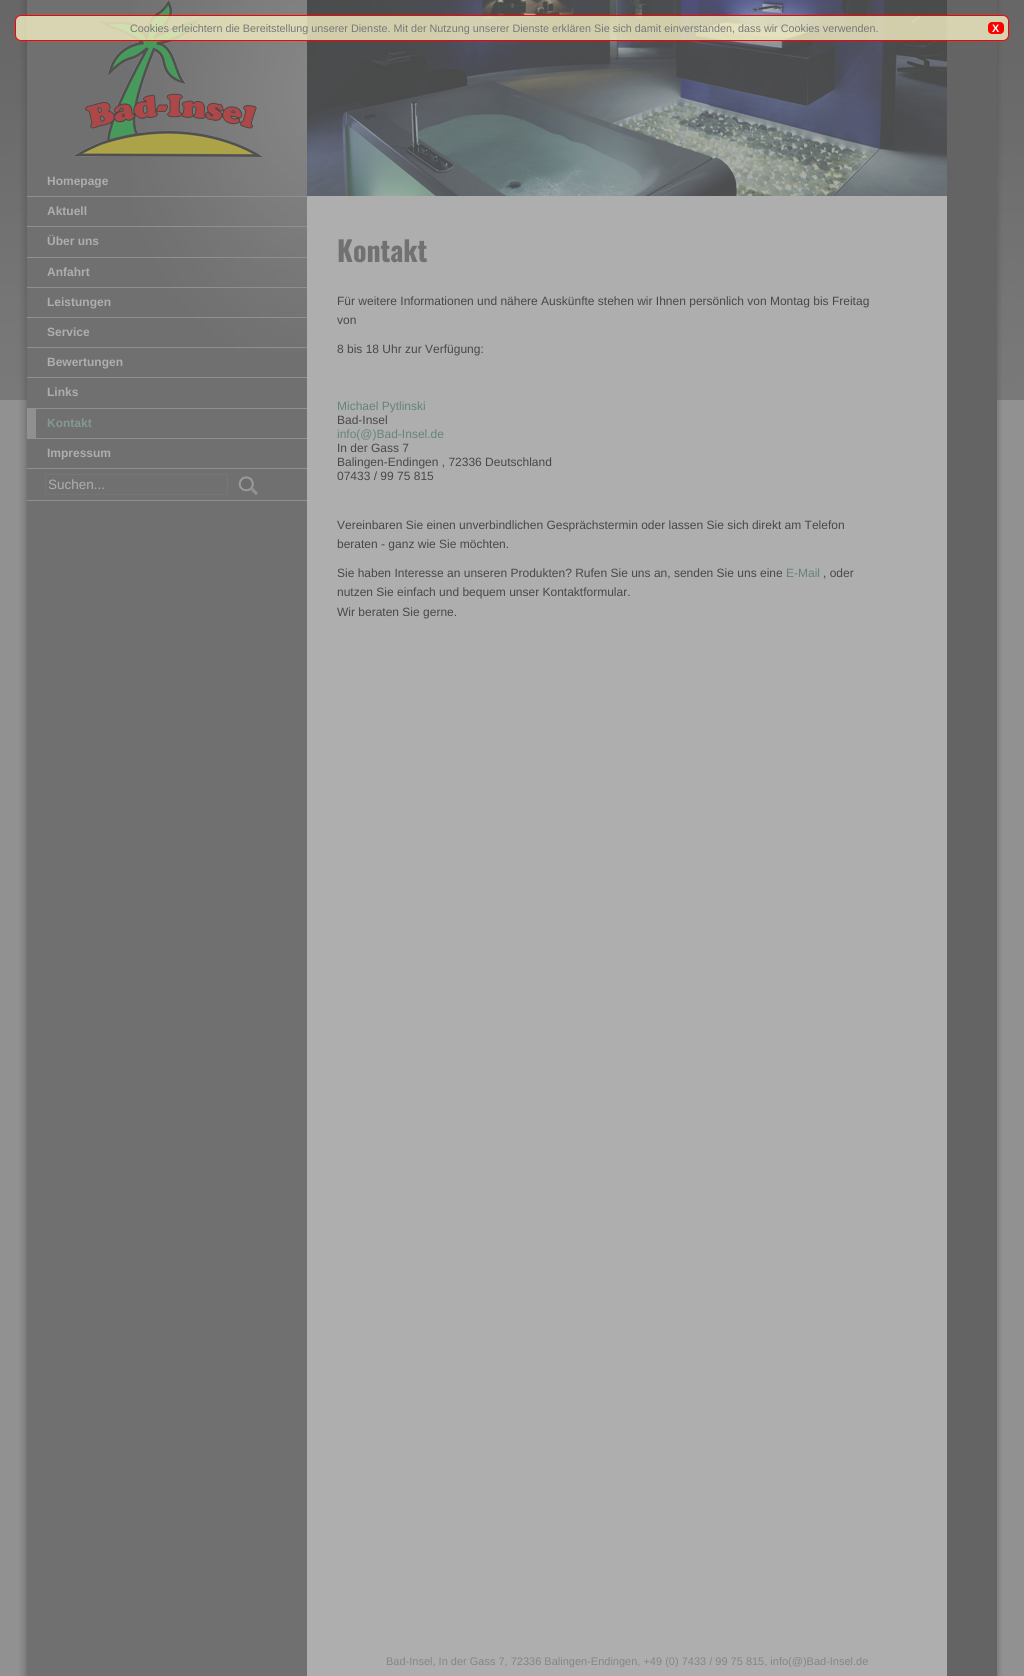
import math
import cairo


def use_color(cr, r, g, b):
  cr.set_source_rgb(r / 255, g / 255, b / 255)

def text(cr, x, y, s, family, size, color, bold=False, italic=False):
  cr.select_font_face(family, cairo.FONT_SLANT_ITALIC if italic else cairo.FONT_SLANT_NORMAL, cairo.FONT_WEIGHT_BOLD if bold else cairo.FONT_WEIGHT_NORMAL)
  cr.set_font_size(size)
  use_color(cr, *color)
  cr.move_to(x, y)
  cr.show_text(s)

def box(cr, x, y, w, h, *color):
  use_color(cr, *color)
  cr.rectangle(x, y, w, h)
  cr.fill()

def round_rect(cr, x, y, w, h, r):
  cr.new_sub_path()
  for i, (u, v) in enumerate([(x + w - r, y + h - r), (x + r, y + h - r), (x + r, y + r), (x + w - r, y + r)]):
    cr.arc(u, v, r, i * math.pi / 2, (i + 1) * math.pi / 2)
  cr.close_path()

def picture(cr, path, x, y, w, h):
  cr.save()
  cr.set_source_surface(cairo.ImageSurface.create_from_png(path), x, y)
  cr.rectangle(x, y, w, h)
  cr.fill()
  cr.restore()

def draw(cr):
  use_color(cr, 145, 145, 145)
  cr.paint()
  picture(cr, "img_01.png", 0, 0, 1024, 400)
  picture(cr, "img_02.png", 19, 0, 984, 1676)
  picture(cr, "img_03.png", 131, 0, 176, 352)
  picture(cr, "img_04.png", 73, 0, 190, 157)
  picture(cr, "img_06.png", 307, 0, 640, 196)
  picture(cr, "img_07.png", 307, 0, 640, 196)
  picture(cr, "img_08.png", 307, 0, 640, 196)
  cr.set_source_rgba(0.957, 0.937, 0.765, 0.8)
  round_rect(cr, 15.5, 15.5, 993, 25, 5.5)
  cr.fill_preserve()
  use_color(cr, 255, 0, 0)
  cr.set_line_width(1)
  cr.stroke()
  round_rect(cr, 988, 22, 16, 12, 4)
  cr.fill()
  box(cr, 27, 196, 280, 1, 144, 144, 144)
  box(cr, 27, 226, 280, 1, 144, 144, 144)
  box(cr, 27, 257, 280, 1, 144, 144, 144)
  box(cr, 27, 287, 280, 1, 144, 144, 144)
  box(cr, 27, 317, 280, 1, 144, 144, 144)
  box(cr, 27, 347, 280, 1, 144, 144, 144)
  box(cr, 27, 377, 280, 1, 144, 144, 144)
  box(cr, 27, 408, 280, 1, 144, 144, 144)
  box(cr, 27, 409, 9, 29, 144, 144, 144)
  box(cr, 27, 438, 280, 1, 144, 144, 144)
  box(cr, 27, 468, 280, 1, 144, 144, 144)
  box(cr, 27, 500, 280, 1, 144, 144, 144)
  cr.rectangle(45.5, 474.5, 182, 20)
  use_color(cr, 118, 118, 118)
  cr.stroke()
  picture(cr, "img_05.png", 238, 476, 20, 19)
  text(cr, 130, 32, "Cookies erleichtern die Bereitstellung unserer Dienste. Mit der Nutzung unserer Dienste erklären Sie sich damit einverstanden, dass wir Cookies verwenden.", "Liberation Sans", 10.8, (119, 119, 119))
  text(cr, 992, 32, "X", "Liberation Sans", 10.8, (255, 255, 255), bold=True)
  text(cr, 47, 185, "Homepage", "Liberation Sans", 12, (174, 174, 174), bold=True)
  text(cr, 47, 215, "Aktuell", "Liberation Sans", 12, (174, 174, 174), bold=True)
  text(cr, 47, 245, "Über uns", "Liberation Sans", 12, (174, 174, 174), bold=True)
  text(cr, 47, 276, "Anfahrt", "Liberation Sans", 12, (174, 174, 174), bold=True)
  text(cr, 47, 306, "Leistungen", "Liberation Sans", 12, (174, 174, 174), bold=True)
  text(cr, 47, 336, "Service", "Liberation Sans", 12, (174, 174, 174), bold=True)
  text(cr, 47, 366, "Bewertungen", "Liberation Sans", 12, (174, 174, 174), bold=True)
  text(cr, 47, 396, "Links", "Liberation Sans", 12, (174, 174, 174), bold=True)
  text(cr, 47, 427, "Kontakt", "Liberation Sans", 12, (132, 152, 147), bold=True)
  text(cr, 47, 457, "Impressum", "Liberation Sans", 12, (174, 174, 174), bold=True)
  text(cr, 48, 489, "Suchen...", "Liberation Sans", 13.5, (174, 174, 174))
  text(cr, 337, 262, "Kontakt", "Oswald", 28, (113, 113, 113), bold=True)
  text(cr, 337, 305, "Für weitere Informationen und nähere Auskünfte stehen wir Ihnen persönlich von Montag bis Freitag", "Liberation Sans", 12, (72, 72, 72))
  text(cr, 337, 324, "von", "Liberation Sans", 12, (72, 72, 72))
  text(cr, 337, 353, "8 bis 18 Uhr zur Verfügung:", "Liberation Sans", 12, (72, 72, 72))
  text(cr, 337, 410, "Michael Pytlinski", "Liberation Sans", 12, (100, 132, 123))
  text(cr, 337, 424, "Bad-Insel", "Liberation Sans", 12, (72, 72, 72))
  text(cr, 337, 438, "info(@)Bad-Insel.de", "Liberation Sans", 12, (100, 132, 123))
  text(cr, 337, 452, "In der Gass 7", "Liberation Sans", 12, (72, 72, 72))
  text(cr, 337, 466, "Balingen-Endingen , 72336 Deutschland", "Liberation Sans", 12, (72, 72, 72))
  text(cr, 337, 480, "07433 / 99 75 815", "Liberation Sans", 12, (72, 72, 72))
  text(cr, 337, 529, "Vereinbaren Sie einen unverbindlichen Gesprächstermin oder lassen Sie sich direkt am Telefon", "Liberation Sans", 12, (72, 72, 72))
  text(cr, 337, 548, "beraten - ganz wie Sie möchten.", "Liberation Sans", 12, (72, 72, 72))
  text(cr, 337, 577, "Sie haben Interesse an unseren Produkten? Rufen Sie uns an, senden Sie uns eine", "Liberation Sans", 12, (72, 72, 72))
  text(cr, 786, 577, "E-Mail", "Liberation Sans", 12, (100, 132, 123))
  text(cr, 823, 577, ", oder", "Liberation Sans", 12, (72, 72, 72))
  text(cr, 337, 596, "nutzen Sie einfach und bequem unser Kontaktformular.", "Liberation Sans", 12, (72, 72, 72))
  text(cr, 337, 616, "Wir beraten Sie gerne.", "Liberation Sans", 12, (72, 72, 72))
  text(cr, 386, 1665, "Bad-Insel, In der Gass 7, 72336 Balingen-Endingen, +49 (0) 7433 / 99 75 815, info(@)Bad-Insel.de", "Liberation Sans", 11, (133, 133, 133))


surface = cairo.ImageSurface(cairo.FORMAT_RGB24, 1024, 1676)
cr = cairo.Context(surface)
options = cairo.FontOptions()
options.set_hint_metrics(cairo.HINT_METRICS_OFF)
options.set_hint_style(cairo.HINT_STYLE_NONE)
cr.set_font_options(options)
cr.set_miter_limit(4)
draw(cr)
surface.write_to_png("out.png")
